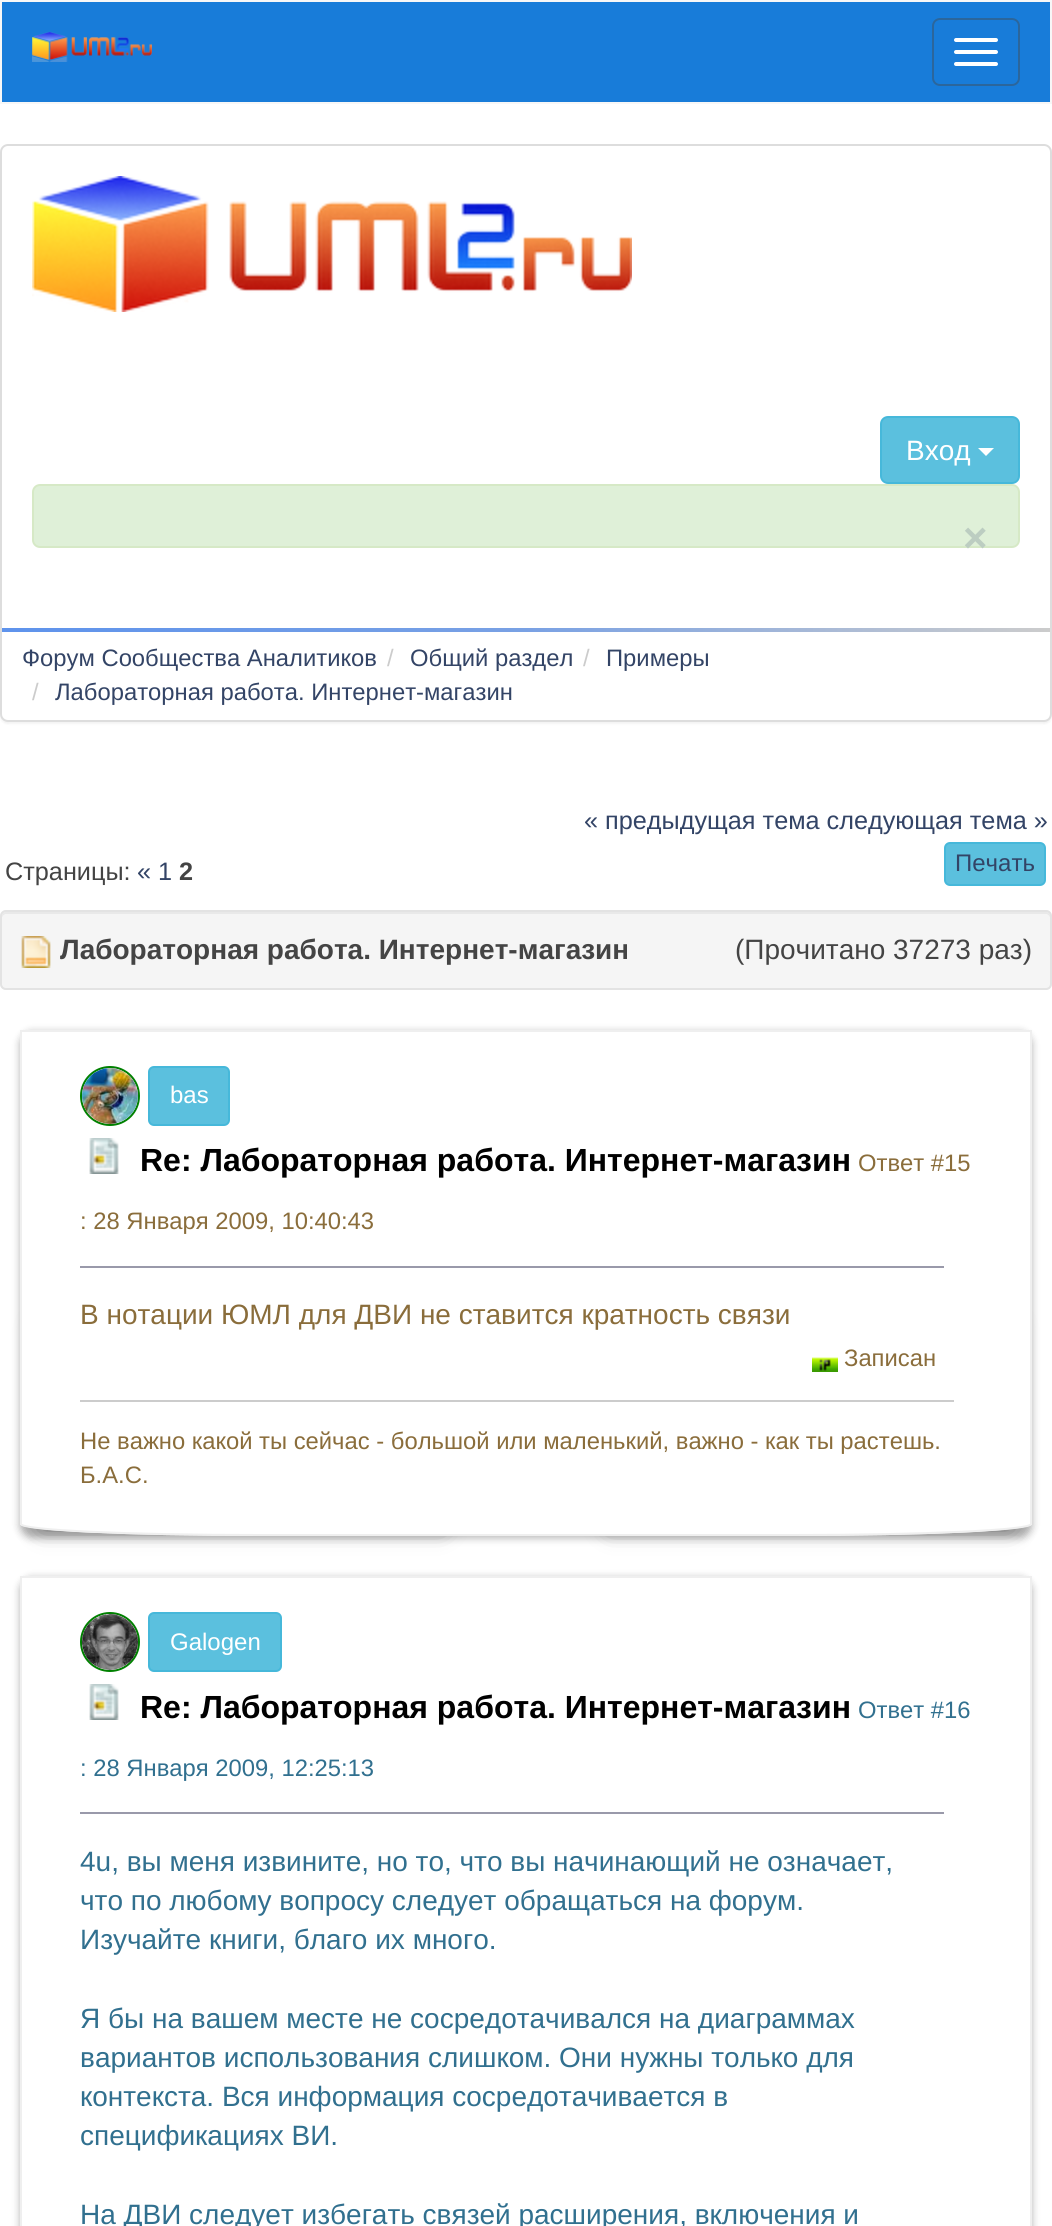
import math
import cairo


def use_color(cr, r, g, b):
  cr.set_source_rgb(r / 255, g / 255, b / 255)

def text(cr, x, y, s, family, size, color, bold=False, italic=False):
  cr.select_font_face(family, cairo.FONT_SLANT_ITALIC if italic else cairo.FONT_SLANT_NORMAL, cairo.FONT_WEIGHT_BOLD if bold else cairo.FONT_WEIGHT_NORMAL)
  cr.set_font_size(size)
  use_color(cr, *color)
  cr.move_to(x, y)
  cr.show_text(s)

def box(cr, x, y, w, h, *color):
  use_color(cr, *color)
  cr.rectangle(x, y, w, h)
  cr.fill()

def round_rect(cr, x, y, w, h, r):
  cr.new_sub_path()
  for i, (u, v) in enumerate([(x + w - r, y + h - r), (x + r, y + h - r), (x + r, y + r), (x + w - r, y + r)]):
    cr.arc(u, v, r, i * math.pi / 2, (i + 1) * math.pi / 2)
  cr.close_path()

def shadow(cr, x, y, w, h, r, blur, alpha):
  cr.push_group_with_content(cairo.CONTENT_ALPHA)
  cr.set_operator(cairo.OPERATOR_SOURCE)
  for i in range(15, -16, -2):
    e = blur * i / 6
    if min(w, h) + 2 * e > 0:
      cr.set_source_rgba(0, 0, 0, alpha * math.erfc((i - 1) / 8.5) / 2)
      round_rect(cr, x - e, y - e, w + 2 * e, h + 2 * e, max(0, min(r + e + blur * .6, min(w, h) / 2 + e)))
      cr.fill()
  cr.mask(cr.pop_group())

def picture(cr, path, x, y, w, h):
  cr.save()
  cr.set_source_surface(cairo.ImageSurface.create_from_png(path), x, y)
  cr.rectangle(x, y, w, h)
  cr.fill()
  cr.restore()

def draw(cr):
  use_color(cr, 255, 255, 255)
  cr.paint()
  use_color(cr, 24, 124, 217)
  cr.rectangle(1, 1, 1050, 102)
  cr.fill_preserve()
  use_color(cr, 247, 247, 247)
  cr.stroke()
  picture(cr, "img_01.png", 32, 32, 120, 30)
  round_rect(cr, 933, 19, 86, 66, 7)
  use_color(cr, 43, 102, 156)
  cr.stroke()
  use_color(cr, 255, 255, 255)
  round_rect(cr, 954, 38, 44, 4, 2)
  cr.fill()
  round_rect(cr, 954, 50, 44, 4, 2)
  cr.fill()
  round_rect(cr, 954, 62, 44, 4, 2)
  cr.fill()
  use_color(cr, 0, 0, 0)
  shadow(cr, 0, 146, 1052, 578, 8, 1, 0.05)
  use_color(cr, 255, 255, 255)
  round_rect(cr, 1, 145, 1050, 576, 7)
  cr.fill_preserve()
  use_color(cr, 221, 221, 221)
  cr.stroke()
  picture(cr, "img_02.png", 32, 176, 600, 136)
  use_color(cr, 91, 192, 222)
  round_rect(cr, 881, 417, 138, 66, 7)
  cr.fill_preserve()
  use_color(cr, 70, 184, 218)
  cr.stroke()
  use_color(cr, 255, 255, 255)
  cr.new_path()
  cr.move_to(978, 448)
  cr.line_to(994, 448)
  cr.line_to(986, 456)
  cr.close_path()
  cr.fill()
  use_color(cr, 223, 240, 216)
  round_rect(cr, 33, 485, 986, 62, 7)
  cr.fill_preserve()
  use_color(cr, 214, 233, 198)
  cr.stroke()
  gradient = cairo.LinearGradient(2, 630, 1050, 630)
  gradient.add_color_stop_rgba(0, 0.369, 0.576, 0.925, 1)
  gradient.add_color_stop_rgba(0.5, 0.475, 0.631, 0.894, 1)
  gradient.add_color_stop_rgba(1, 0.8, 0.8, 0.8, 1)
  cr.set_source(gradient)
  cr.rectangle(2, 628, 1048, 4)
  cr.fill()
  use_color(cr, 91, 192, 222)
  round_rect(cr, 945, 843, 100, 42, 5)
  cr.fill_preserve()
  use_color(cr, 70, 184, 218)
  cr.stroke()
  use_color(cr, 245, 245, 245)
  round_rect(cr, 0, 910, 1052, 80, 6)
  cr.fill()
  use_color(cr, 233, 233, 233)
  cr.new_path()
  cr.move_to(6, 914)
  cr.line_to(1046, 914)
  cr.curve_to(1048, 914, 1050, 916, 1050, 918)
  cr.line_to(1050, 916)
  cr.curve_to(1050, 914, 1048, 912, 1046, 912)
  cr.line_to(6, 912)
  cr.curve_to(4, 912, 2, 914, 2, 916)
  cr.line_to(2, 918)
  cr.curve_to(2, 916, 4, 914, 6, 914)
  cr.close_path()
  cr.fill()
  round_rect(cr, 1, 911, 1050, 78, 5)
  use_color(cr, 227, 227, 227)
  cr.stroke()
  picture(cr, "img_03.png", 21, 936, 30, 32)
  use_color(cr, 0, 0, 0)
  shadow(cr, 20, 1032, 1012, 506, 12, 4, 0.3)
  shadow(cr, 42, 1326, 400, 200, 0, 12, 0.5)
  shadow(cr, 610, 1326, 400, 200, 0, 12, 0.5)
  use_color(cr, 255, 255, 255)
  cr.new_path()
  cr.move_to(20, 1030)
  cr.line_to(1032, 1030)
  cr.line_to(1032, 1524)
  cr.curve_to(1032, 1531, 925, 1536, 792, 1536)
  cr.line_to(260, 1536)
  cr.curve_to(127, 1536, 20, 1531, 20, 1524)
  cr.close_path()
  cr.fill()
  cr.new_path()
  cr.move_to(21, 1031)
  cr.line_to(1031, 1031)
  cr.line_to(1031, 1524)
  cr.curve_to(1031, 1530, 924, 1535, 792, 1535)
  cr.line_to(260, 1535)
  cr.curve_to(128, 1535, 21, 1530, 21, 1524)
  cr.close_path()
  use_color(cr, 239, 239, 239)
  cr.stroke()
  cr.arc(110, 1096, 29, 0, 2 * math.pi)
  use_color(cr, 0, 128, 0)
  cr.stroke()
  picture(cr, "img_04.png", 82, 1068, 56, 56)
  use_color(cr, 91, 192, 222)
  round_rect(cr, 149, 1067, 80, 58, 5)
  cr.fill_preserve()
  use_color(cr, 70, 184, 218)
  cr.stroke()
  picture(cr, "img_05.png", 89, 1138, 30, 36)
  box(cr, 80, 1266, 864, 2, 153, 153, 170)
  picture(cr, "img_06.png", 812, 1357, 26, 15)
  box(cr, 80, 1400, 874, 2, 204, 204, 204)
  cr.save()
  cr.set_fill_rule(cairo.FILL_RULE_EVEN_ODD)
  cr.new_path()
  cr.move_to(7, 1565)
  cr.line_to(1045, 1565)
  cr.line_to(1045, 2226)
  cr.line_to(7, 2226)
  cr.close_path()
  cr.move_to(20, 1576)
  cr.line_to(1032, 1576)
  cr.line_to(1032, 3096)
  cr.curve_to(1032, 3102.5, 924.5, 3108, 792, 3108)
  cr.line_to(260, 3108)
  cr.curve_to(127.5, 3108, 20, 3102.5, 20, 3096)
  cr.close_path()
  cr.clip()
  use_color(cr, 0, 0, 0)
  shadow(cr, 20, 1578, 1012, 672, 12, 4, 0.3)
  cr.restore()
  cr.new_path()
  cr.move_to(21, 1577)
  cr.line_to(1031, 1577)
  cr.line_to(1031, 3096)
  cr.curve_to(1031, 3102, 924, 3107, 792, 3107)
  cr.line_to(260, 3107)
  cr.curve_to(128, 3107, 21, 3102, 21, 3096)
  cr.close_path()
  use_color(cr, 239, 239, 239)
  cr.stroke()
  cr.arc(110, 1642, 29, 0, 2 * math.pi)
  use_color(cr, 0, 128, 0)
  cr.stroke()
  picture(cr, "img_07.png", 82, 1614, 56, 56)
  use_color(cr, 91, 192, 222)
  round_rect(cr, 149, 1613, 132, 58, 5)
  cr.fill_preserve()
  use_color(cr, 70, 184, 218)
  cr.stroke()
  picture(cr, "img_05.png", 89, 1684, 30, 36)
  box(cr, 80, 1812, 864, 2, 153, 153, 170)
  text(cr, 906, 460, "Вход", "Liberation Sans", 28, (255, 255, 255))
  text(cr, 963, 552, "×", "Liberation Sans", 42, (188, 205, 193), bold=True)
  text(cr, 22, 666, "Форум Сообщества Аналитиков", "Liberation Sans", 23.8, (51, 68, 102))
  text(cr, 387, 666, "/", "Liberation Sans", 23.8, (204, 204, 204))
  text(cr, 410, 666, "Общий раздел", "Liberation Sans", 23.8, (51, 68, 102))
  text(cr, 583, 666, "/", "Liberation Sans", 23.8, (204, 204, 204))
  text(cr, 606, 666, "Примеры", "Liberation Sans", 23.8, (51, 68, 102))
  text(cr, 32, 700, "/", "Liberation Sans", 23.8, (204, 204, 204))
  text(cr, 55, 700, "Лабораторная работа. Интернет-магазин", "Liberation Sans", 23.8, (51, 68, 102))
  text(cr, 584, 829, "« предыдущая тема следующая тема »", "Liberation Sans", 25.25, (51, 68, 102))
  text(cr, 5, 880, "Страницы:", "Liberation Sans", 25.25, (68, 68, 68))
  text(cr, 137, 880, "« 1", "Liberation Sans", 25.25, (51, 68, 102))
  text(cr, 179, 880, "2", "Liberation Sans", 25.25, (68, 68, 68), bold=True)
  text(cr, 955, 871, "Печать", "Liberation Sans", 24, (51, 68, 102))
  text(cr, 60, 959, "Лабораторная работа. Интернет-магазин", "Liberation Sans", 28, (68, 68, 68), bold=True)
  text(cr, 735, 959, "(Прочитано 37273 раз)", "Liberation Sans", 28, (68, 68, 68))
  text(cr, 170, 1103, "bas", "Liberation Sans", 24, (255, 255, 255))
  text(cr, 140, 1171, "Re: Лабораторная работа. Интернет-магазин", "Liberation Sans", 32, (0, 0, 0), bold=True)
  text(cr, 858, 1171, "Ответ #15", "Liberation Sans", 23.8, (138, 109, 59))
  text(cr, 80, 1229, ": 28 Января 2009, 10:40:43", "Liberation Sans", 23.8, (138, 109, 59))
  text(cr, 80, 1324, "В нотации ЮМЛ для ДВИ не ставится кратность связи", "Liberation Sans", 28, (138, 109, 59))
  text(cr, 844, 1366, "Записан", "Liberation Sans", 23.8, (138, 109, 59))
  text(cr, 80, 1449, "Не важно какой ты сейчас - большой или маленький, важно - как ты растешь.", "Liberation Sans", 23.8, (138, 109, 59))
  text(cr, 80, 1483, "Б.А.С.", "Liberation Sans", 23.8, (138, 109, 59))
  text(cr, 170, 1650, "Galogen", "Liberation Sans", 24, (255, 255, 255))
  text(cr, 140, 1718, "Re: Лабораторная работа. Интернет-магазин", "Liberation Sans", 32, (0, 0, 0), bold=True)
  text(cr, 858, 1718, "Ответ #16", "Liberation Sans", 23.8, (49, 112, 143))
  text(cr, 80, 1776, ": 28 Января 2009, 12:25:13", "Liberation Sans", 23.8, (49, 112, 143))
  text(cr, 80, 1871, "4u, вы меня извините, но то, что вы начинающий не означает,", "Liberation Sans", 28, (49, 112, 143))
  text(cr, 80, 1910, "что по любому вопросу следует обращаться на форум.", "Liberation Sans", 28, (49, 112, 143))
  text(cr, 80, 1949, "Изучайте книги, благо их много.", "Liberation Sans", 28, (49, 112, 143))
  text(cr, 80, 2028, "Я бы на вашем месте не сосредотачивался на диаграммах", "Liberation Sans", 28, (49, 112, 143))
  text(cr, 80, 2067, "вариантов использования слишком. Они нужны только для", "Liberation Sans", 28, (49, 112, 143))
  text(cr, 80, 2106, "контекста. Вся информация сосредотачивается в", "Liberation Sans", 28, (49, 112, 143))
  text(cr, 80, 2145, "спецификациях ВИ.", "Liberation Sans", 28, (49, 112, 143))
  text(cr, 80, 2224, "На ДВИ следует избегать связей расширения, включения и", "Liberation Sans", 28, (49, 112, 143))


surface = cairo.ImageSurface(cairo.FORMAT_RGB24, 1052, 2226)
cr = cairo.Context(surface)
options = cairo.FontOptions()
options.set_hint_metrics(cairo.HINT_METRICS_OFF)
options.set_hint_style(cairo.HINT_STYLE_NONE)
cr.set_font_options(options)
cr.set_miter_limit(4)
draw(cr)
surface.write_to_png("out.png")
